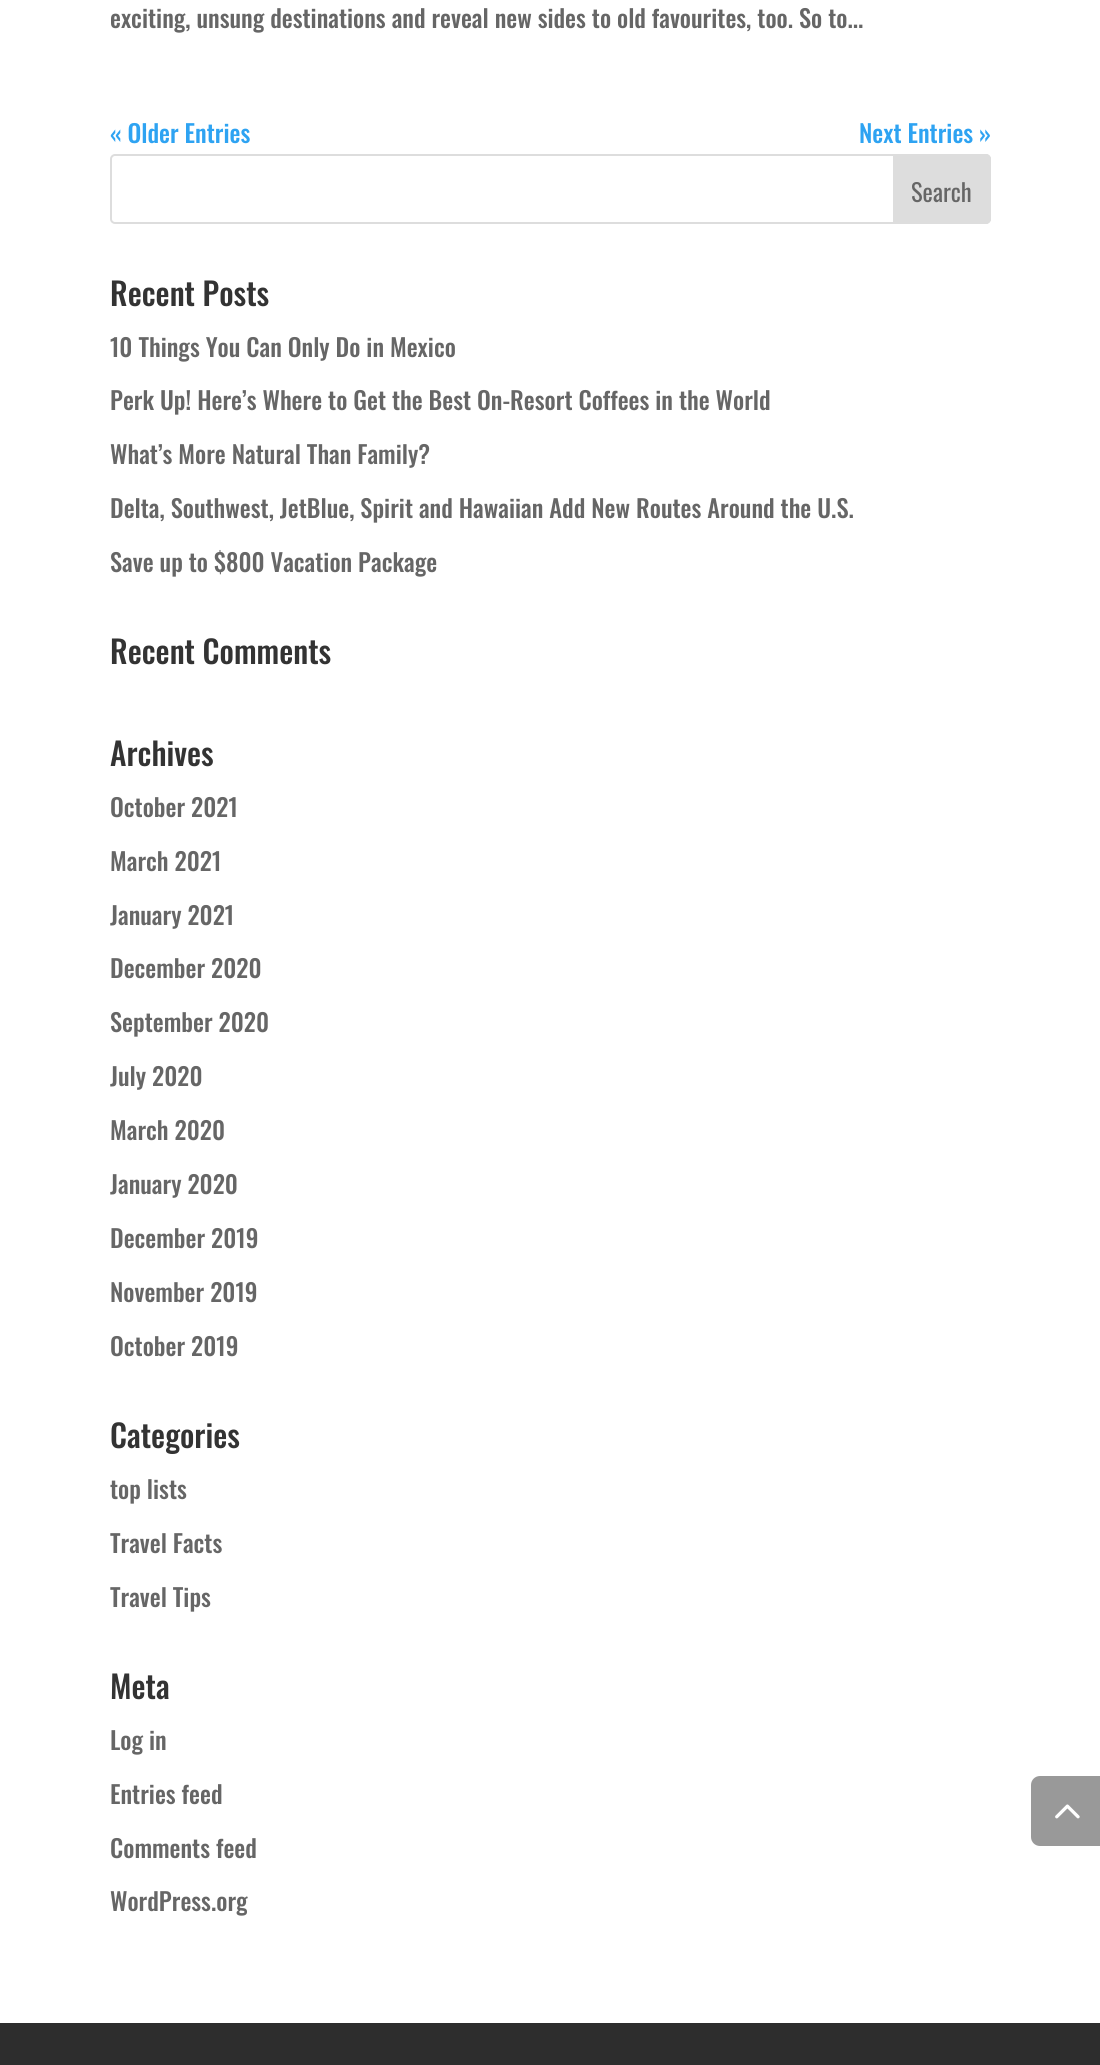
import math
import cairo


def use_color(cr, r, g, b):
  cr.set_source_rgb(r / 255, g / 255, b / 255)

def text(cr, x, y, s, family, size, color, bold=False, italic=False):
  cr.select_font_face(family, cairo.FONT_SLANT_ITALIC if italic else cairo.FONT_SLANT_NORMAL, cairo.FONT_WEIGHT_BOLD if bold else cairo.FONT_WEIGHT_NORMAL)
  cr.set_font_size(size)
  use_color(cr, *color)
  cr.move_to(x, y)
  cr.show_text(s)

def box(cr, x, y, w, h, *color):
  use_color(cr, *color)
  cr.rectangle(x, y, w, h)
  cr.fill()

def round_rect(cr, x, y, w, h, r):
  cr.new_sub_path()
  for i, (u, v) in enumerate([(x + w - r, y + h - r), (x + r, y + h - r), (x + r, y + r), (x + w - r, y + r)]):
    cr.arc(u, v, r, i * math.pi / 2, (i + 1) * math.pi / 2)
  cr.close_path()

def picture(cr, path, x, y, w, h):
  cr.save()
  cr.set_source_surface(cairo.ImageSurface.create_from_png(path), x, y)
  cr.rectangle(x, y, w, h)
  cr.fill()
  cr.restore()

def draw(cr):
  use_color(cr, 255, 255, 255)
  cr.paint()
  round_rect(cr, 111, 155, 879, 68, 4)
  use_color(cr, 221, 221, 221)
  cr.stroke()
  cr.new_path()
  cr.move_to(894, 155)
  cr.line_to(986, 155)
  cr.curve_to(988, 155, 990, 157, 990, 159)
  cr.line_to(990, 219)
  cr.curve_to(990, 221, 988, 223, 986, 223)
  cr.line_to(894, 223)
  cr.close_path()
  cr.fill_preserve()
  cr.stroke()
  use_color(cr, 153, 153, 153)
  cr.new_path()
  cr.move_to(1040, 1776)
  cr.line_to(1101, 1776)
  cr.line_to(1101, 1846)
  cr.line_to(1040, 1846)
  cr.curve_to(1035, 1846, 1031, 1842, 1031, 1837)
  cr.line_to(1031, 1785)
  cr.curve_to(1031, 1780, 1035, 1776, 1040, 1776)
  cr.close_path()
  cr.fill()
  picture(cr, "img_01.png", 1055, 1804, 25, 15)
  box(cr, 0, 2023, 1100, 42, 45, 45, 45)
  text(cr, 110, 28, "exciting, unsung destinations and reveal new sides to old favourites, too. So to...", "Oswald Medium", 24.5, (102, 102, 102))
  text(cr, 110, 143, "« Older Entries", "Oswald Medium", 24.5, (46, 163, 242))
  text(cr, 859, 143, "Next Entries »", "Oswald Medium", 24.5, (46, 163, 242))
  text(cr, 911, 202, "Search", "Oswald", 24.5, (102, 102, 102))
  text(cr, 110, 306, "Recent Posts", "Oswald Medium", 31.5, (51, 51, 51))
  text(cr, 110, 357, "10 Things You Can Only Do in Mexico", "Oswald Medium", 24.5, (102, 102, 102))
  text(cr, 110, 410, "Perk Up! Here’s Where to Get the Best On-Resort Coffees in the World", "Oswald Medium", 24.5, (102, 102, 102))
  text(cr, 110, 464, "What’s More Natural Than Family?", "Oswald Medium", 24.5, (102, 102, 102))
  text(cr, 110, 518, "Delta, Southwest, JetBlue, Spirit and Hawaiian Add New Routes Around the U.S.", "Oswald Medium", 24.5, (102, 102, 102))
  text(cr, 110, 572, "Save up to $800 Vacation Package", "Oswald Medium", 24.5, (102, 102, 102))
  text(cr, 110, 664, "Recent Comments", "Oswald Medium", 31.5, (51, 51, 51))
  text(cr, 110, 766, "Archives", "Oswald Medium", 31.5, (51, 51, 51))
  text(cr, 110, 817, "October 2021", "Oswald Medium", 24.5, (102, 102, 102))
  text(cr, 110, 871, "March 2021", "Oswald Medium", 24.5, (102, 102, 102))
  text(cr, 110, 925, "January 2021", "Oswald Medium", 24.5, (102, 102, 102))
  text(cr, 110, 978, "December 2020", "Oswald Medium", 24.5, (102, 102, 102))
  text(cr, 110, 1032, "September 2020", "Oswald Medium", 24.5, (102, 102, 102))
  text(cr, 110, 1086, "July 2020", "Oswald Medium", 24.5, (102, 102, 102))
  text(cr, 110, 1140, "March 2020", "Oswald Medium", 24.5, (102, 102, 102))
  text(cr, 110, 1194, "January 2020", "Oswald Medium", 24.5, (102, 102, 102))
  text(cr, 110, 1248, "December 2019", "Oswald Medium", 24.5, (102, 102, 102))
  text(cr, 110, 1302, "November 2019", "Oswald Medium", 24.5, (102, 102, 102))
  text(cr, 110, 1356, "October 2019", "Oswald Medium", 24.5, (102, 102, 102))
  text(cr, 110, 1448, "Categories", "Oswald Medium", 31.5, (51, 51, 51))
  text(cr, 110, 1499, "top lists", "Oswald Medium", 24.5, (102, 102, 102))
  text(cr, 110, 1553, "Travel Facts", "Oswald Medium", 24.5, (102, 102, 102))
  text(cr, 110, 1607, "Travel Tips", "Oswald Medium", 24.5, (102, 102, 102))
  text(cr, 110, 1699, "Meta", "Oswald Medium", 31.5, (51, 51, 51))
  text(cr, 110, 1750, "Log in", "Oswald Medium", 24.5, (102, 102, 102))
  text(cr, 110, 1804, "Entries feed", "Oswald Medium", 24.5, (102, 102, 102))
  text(cr, 110, 1858, "Comments feed", "Oswald Medium", 24.5, (102, 102, 102))
  text(cr, 110, 1911, "WordPress.org", "Oswald Medium", 24.5, (102, 102, 102))


surface = cairo.ImageSurface(cairo.FORMAT_RGB24, 1100, 2065)
cr = cairo.Context(surface)
options = cairo.FontOptions()
options.set_hint_metrics(cairo.HINT_METRICS_OFF)
options.set_hint_style(cairo.HINT_STYLE_NONE)
cr.set_font_options(options)
cr.set_miter_limit(4)
draw(cr)
surface.write_to_png("out.png")
